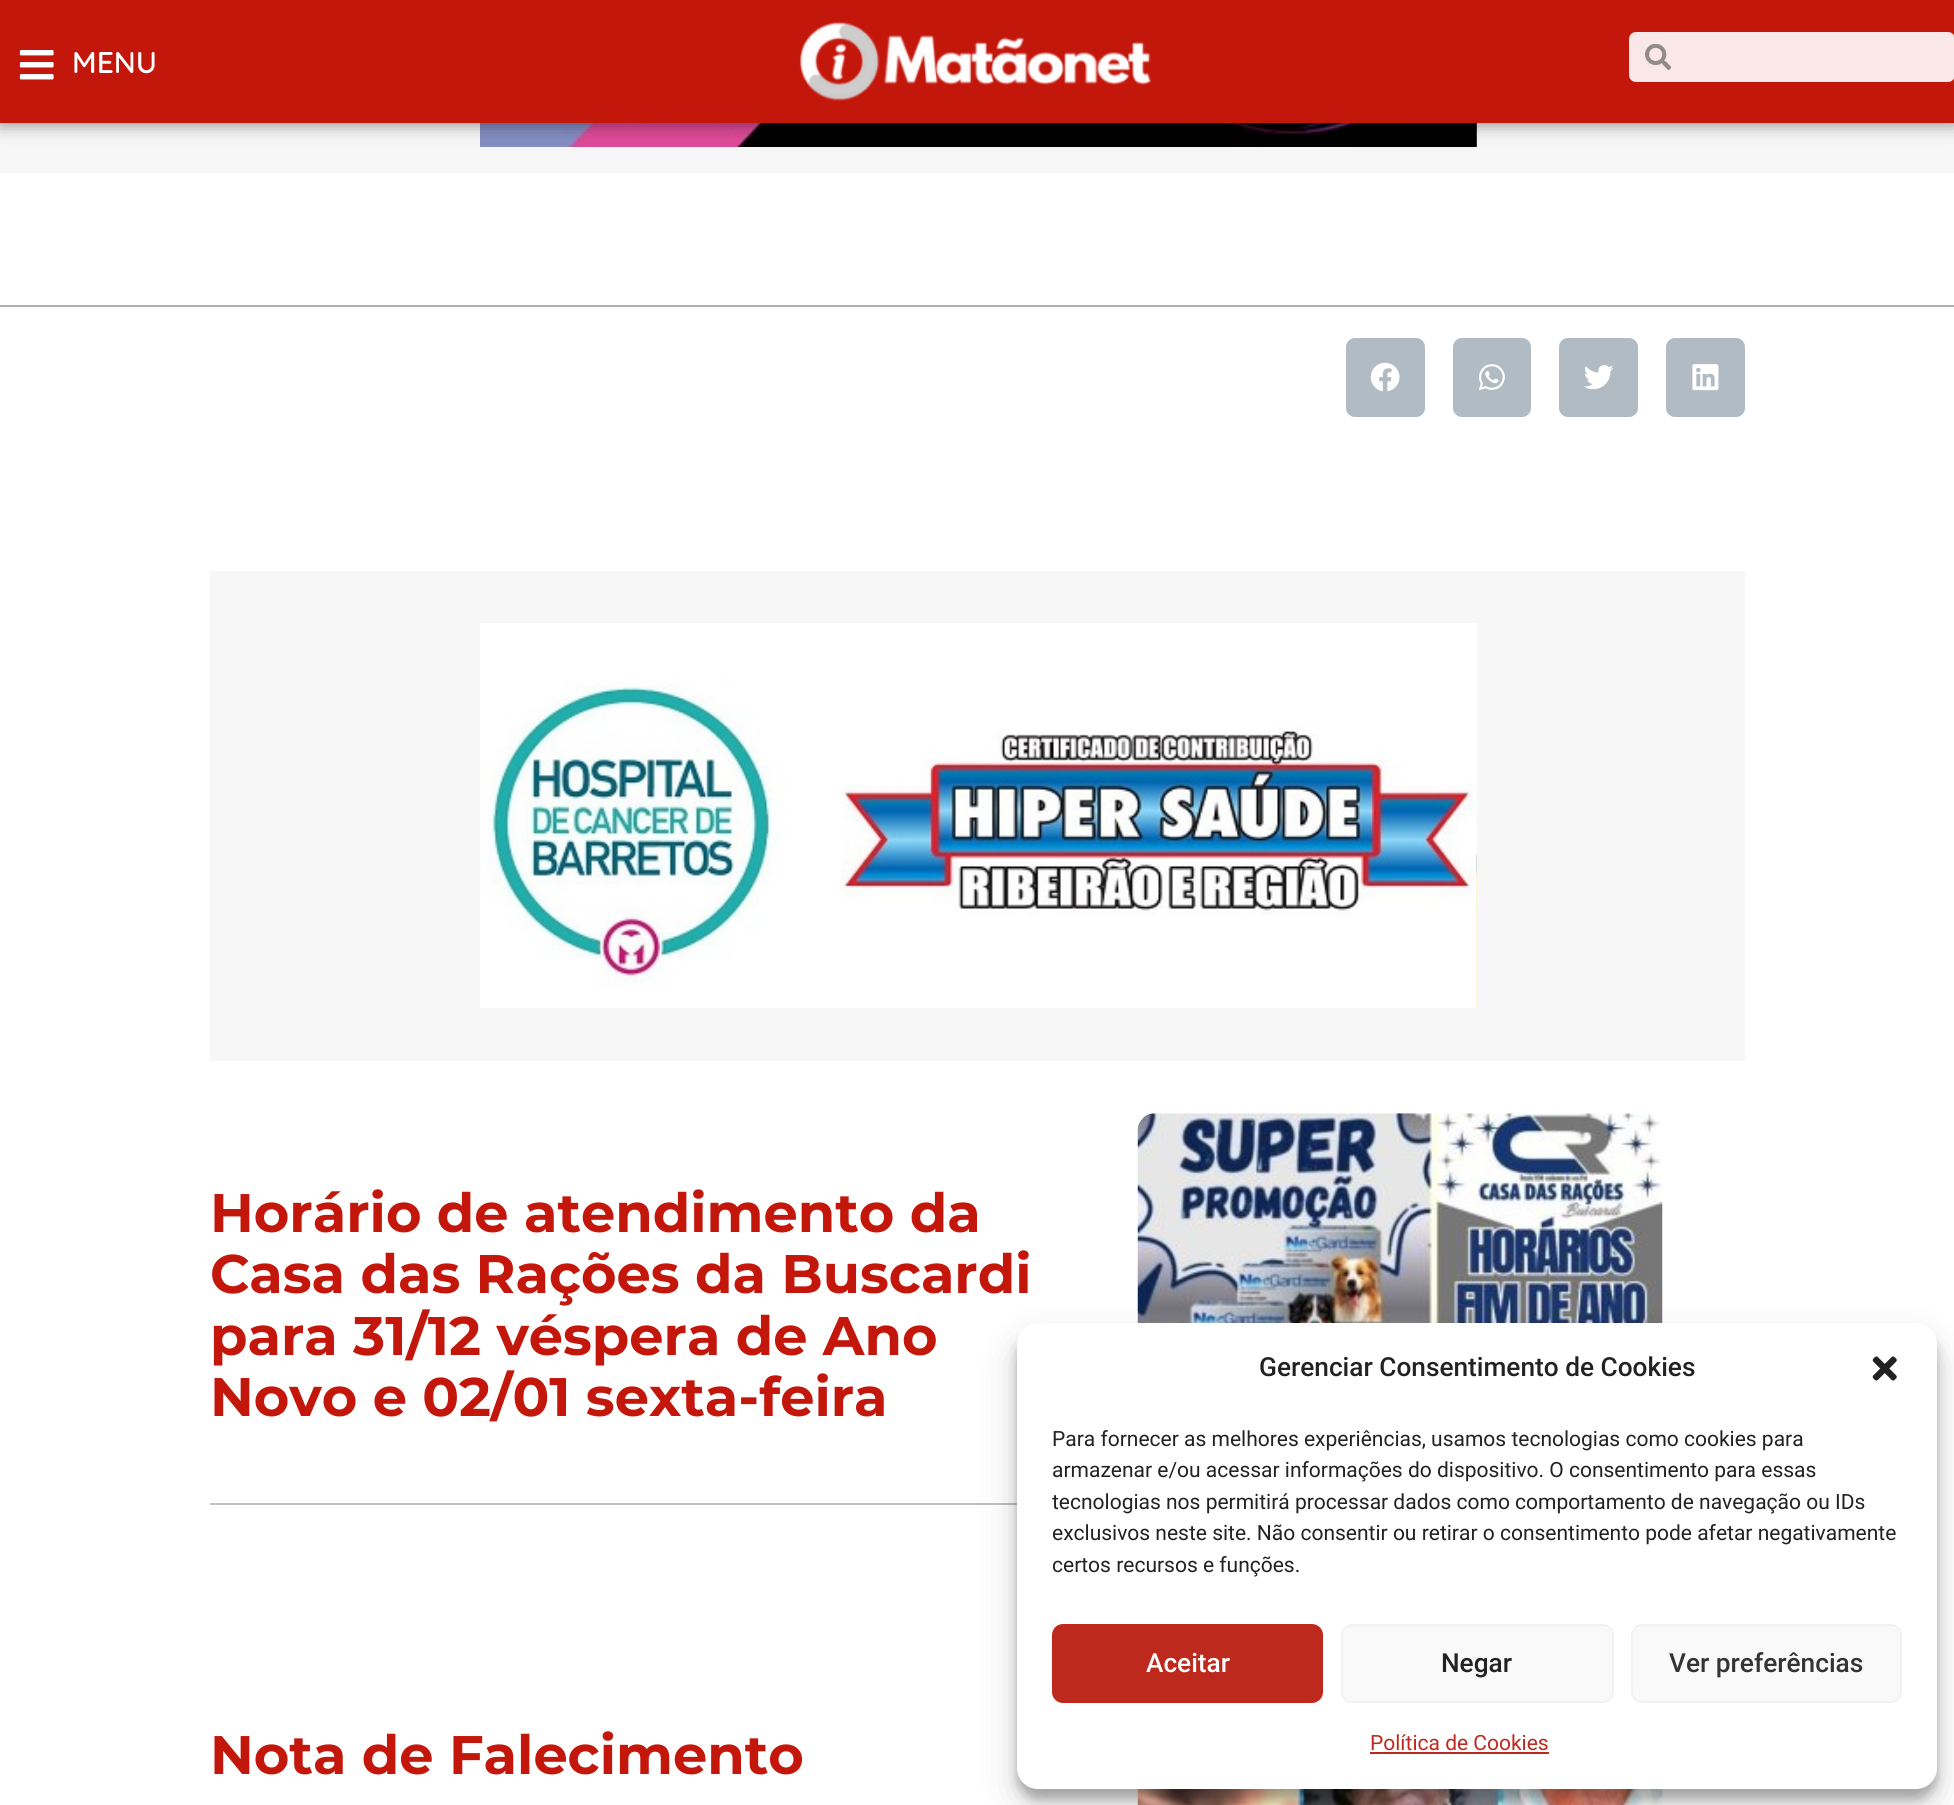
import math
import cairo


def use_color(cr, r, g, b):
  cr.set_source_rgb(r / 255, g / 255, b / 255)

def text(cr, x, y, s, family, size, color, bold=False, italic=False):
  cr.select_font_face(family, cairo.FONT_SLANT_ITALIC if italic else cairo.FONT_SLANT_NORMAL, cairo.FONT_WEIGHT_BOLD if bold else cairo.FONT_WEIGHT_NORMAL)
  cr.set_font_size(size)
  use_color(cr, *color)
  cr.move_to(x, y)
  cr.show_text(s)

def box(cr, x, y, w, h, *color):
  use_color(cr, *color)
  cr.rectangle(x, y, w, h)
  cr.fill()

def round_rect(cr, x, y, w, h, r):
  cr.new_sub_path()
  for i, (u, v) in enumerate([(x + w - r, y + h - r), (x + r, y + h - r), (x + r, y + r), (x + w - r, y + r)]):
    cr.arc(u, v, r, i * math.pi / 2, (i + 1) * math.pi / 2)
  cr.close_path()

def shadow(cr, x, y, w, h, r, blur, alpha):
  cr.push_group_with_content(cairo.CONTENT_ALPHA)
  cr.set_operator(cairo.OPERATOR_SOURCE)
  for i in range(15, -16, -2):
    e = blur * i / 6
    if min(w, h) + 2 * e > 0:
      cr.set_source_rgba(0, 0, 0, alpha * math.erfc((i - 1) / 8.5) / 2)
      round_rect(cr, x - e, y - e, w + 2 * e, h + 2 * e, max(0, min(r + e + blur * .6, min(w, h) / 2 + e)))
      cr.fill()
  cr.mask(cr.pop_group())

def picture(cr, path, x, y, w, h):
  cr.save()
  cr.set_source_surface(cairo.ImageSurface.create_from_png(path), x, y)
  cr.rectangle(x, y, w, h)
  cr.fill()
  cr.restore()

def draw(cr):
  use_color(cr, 255, 255, 255)
  cr.paint()
  box(cr, 0, 123, 1954, 50, 246, 246, 246)
  picture(cr, "img_04.png", 480, 123, 997, 24)
  picture(cr, "img_05.png", 1476, 123, 1, 24)
  use_color(cr, 0, 0, 0)
  shadow(cr, 0, 0, 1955, 123, 0, 9, 0.5)
  box(cr, 0, 0, 1954, 123, 196, 23, 12)
  picture(cr, "img_01.png", 19, 50, 35, 30)
  picture(cr, "img_02.png", 799, 22, 353, 79)
  use_color(cr, 249, 232, 231)
  round_rect(cr, 1629, 32, 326, 50, 7)
  cr.fill()
  picture(cr, "img_03.png", 1645, 44, 26, 26)
  box(cr, 0, 305, 1954, 2, 175, 175, 175)
  use_color(cr, 176, 187, 195)
  round_rect(cr, 1346, 338, 79, 79, 9)
  cr.fill()
  picture(cr, "img_06.png", 1370, 362, 30, 30)
  round_rect(cr, 1453, 338, 78, 79, 9)
  cr.fill()
  picture(cr, "img_07.png", 1479, 364, 26, 26)
  round_rect(cr, 1559, 338, 79, 79, 9)
  cr.fill()
  picture(cr, "img_08.png", 1584, 365, 30, 25)
  round_rect(cr, 1666, 338, 79, 79, 9)
  cr.fill()
  picture(cr, "img_09.png", 1692, 364, 27, 27)
  box(cr, 210, 571, 1535, 490, 247, 247, 247)
  picture(cr, "img_10.png", 480, 623, 997, 385)
  picture(cr, "img_11.png", 1476, 853, 1, 155)
  picture(cr, "img_12.png", 1137, 1113, 526, 210)
  box(cr, 210, 1503, 807, 2, 192, 192, 192)
  picture(cr, "img_13.png", 1137, 1789, 526, 16)
  use_color(cr, 0, 0, 0)
  shadow(cr, 1017, 1334, 920, 465, 21, 5, 0.23)
  shadow(cr, 1017, 1341, 920, 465, 21, 17.5, 0.19)
  use_color(cr, 255, 255, 255)
  round_rect(cr, 1017, 1323, 920, 466, 21)
  cr.fill()
  picture(cr, "img_14.png", 1872, 1356, 25, 25)
  use_color(cr, 190, 41, 30)
  round_rect(cr, 1053, 1625, 269, 77, 10)
  cr.fill_preserve()
  cr.stroke()
  use_color(cr, 249, 249, 249)
  round_rect(cr, 1342, 1625, 271, 77, 10)
  cr.fill_preserve()
  use_color(cr, 242, 242, 242)
  cr.stroke()
  use_color(cr, 249, 249, 249)
  round_rect(cr, 1632, 1625, 269, 77, 10)
  cr.fill_preserve()
  use_color(cr, 242, 242, 242)
  cr.stroke()
  box(cr, 1370, 1752, 179, 2, 190, 41, 30)
  text(cr, 72, 73, "MENU", "Quicksand SemiBold", 30, (255, 255, 255))
  text(cr, 210, 1232, "Horário de atendimento da", "Montserrat", 54.25, (196, 23, 12), bold=True)
  text(cr, 210, 1293, "Casa das Rações da Buscardi", "Montserrat", 54.25, (196, 23, 12), bold=True)
  text(cr, 210, 1355, "para 31/12 véspera de Ano", "Montserrat", 54.25, (196, 23, 12), bold=True)
  text(cr, 210, 1416, "Novo e 02/01 sexta-feira", "Montserrat", 54.25, (196, 23, 12), bold=True)
  text(cr, 210, 1774, "Nota de Falecimento", "Montserrat", 54.25, (196, 23, 12), bold=True)
  text(cr, 1259, 1376, "Gerenciar Consentimento de Cookies", "Roboto Medium", 26.25, (34, 34, 34))
  text(cr, 1052, 1446, "Para fornecer as melhores experiências, usamos tecnologias como cookies para", "Roboto", 21, (34, 34, 34))
  text(cr, 1052, 1477, "armazenar e/ou acessar informações do dispositivo. O consentimento para essas", "Roboto", 21, (34, 34, 34))
  text(cr, 1052, 1509, "tecnologias nos permitirá processar dados como comportamento de navegação ou IDs", "Roboto", 21, (34, 34, 34))
  text(cr, 1052, 1540, "exclusivos neste site. Não consentir ou retirar o consentimento pode afetar negativamente", "Roboto", 21, (34, 34, 34))
  text(cr, 1052, 1572, "certos recursos e funções.", "Roboto", 21, (34, 34, 34))
  text(cr, 1146, 1672, "Aceitar", "Roboto Medium", 26.25, (255, 255, 255))
  text(cr, 1441, 1672, "Negar", "Roboto Medium", 26.25, (34, 34, 34))
  text(cr, 1669, 1672, "Ver preferências", "Roboto Medium", 26.25, (51, 51, 51))
  text(cr, 1370, 1750, "Política de Cookies", "Roboto", 21, (190, 41, 30))


surface = cairo.ImageSurface(cairo.FORMAT_RGB24, 1954, 1805)
cr = cairo.Context(surface)
options = cairo.FontOptions()
options.set_hint_metrics(cairo.HINT_METRICS_OFF)
options.set_hint_style(cairo.HINT_STYLE_NONE)
cr.set_font_options(options)
cr.set_miter_limit(4)
draw(cr)
surface.write_to_png("out.png")
